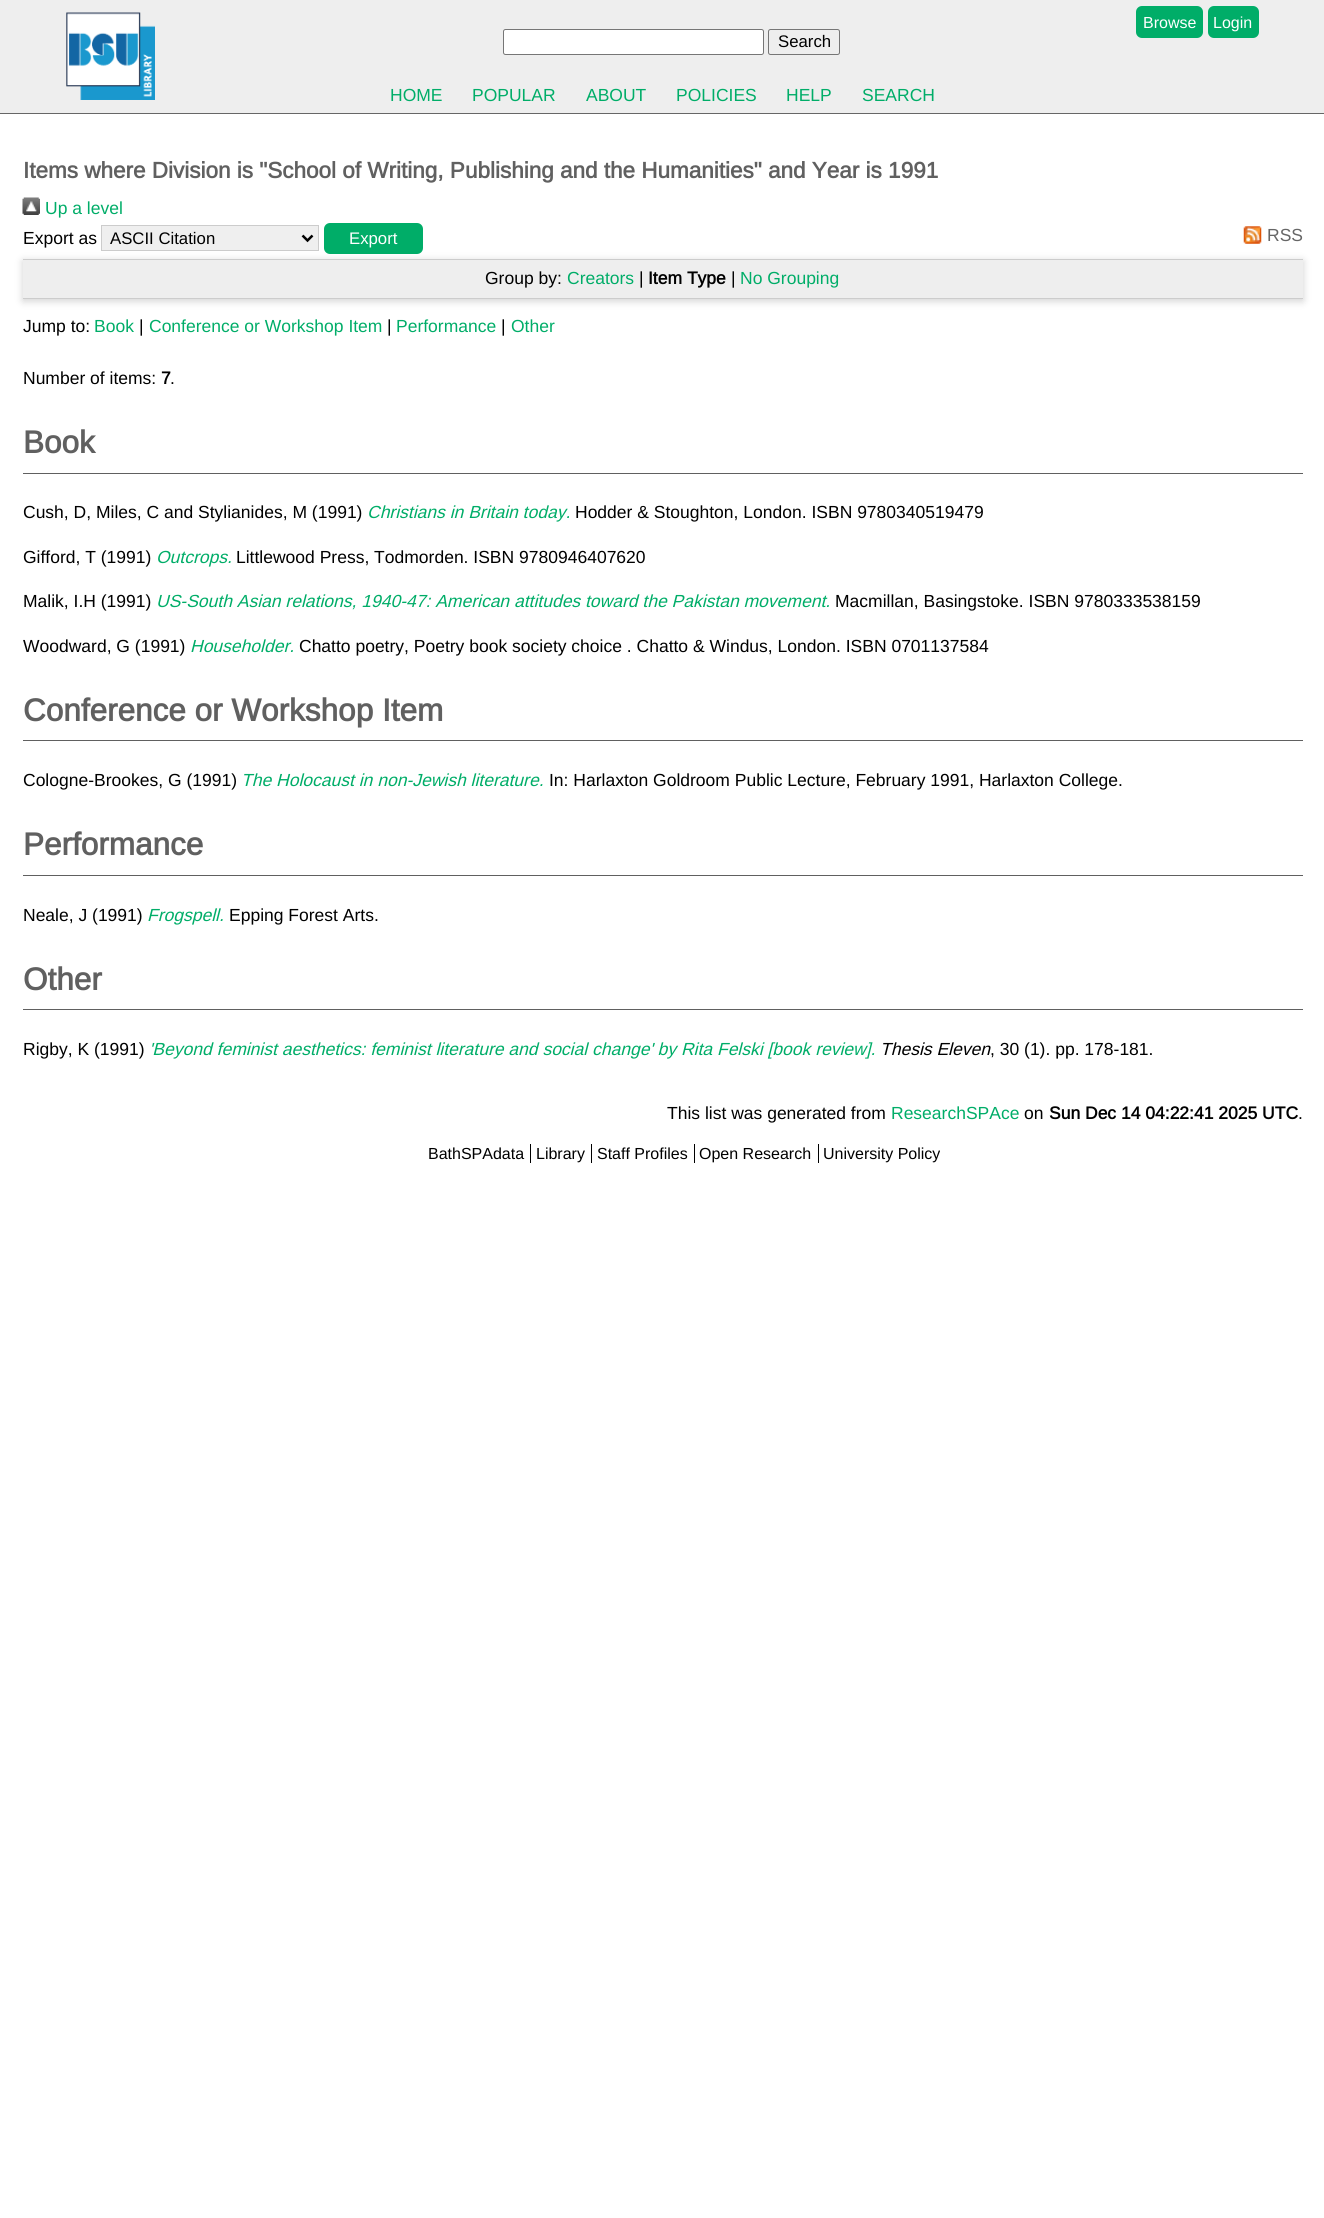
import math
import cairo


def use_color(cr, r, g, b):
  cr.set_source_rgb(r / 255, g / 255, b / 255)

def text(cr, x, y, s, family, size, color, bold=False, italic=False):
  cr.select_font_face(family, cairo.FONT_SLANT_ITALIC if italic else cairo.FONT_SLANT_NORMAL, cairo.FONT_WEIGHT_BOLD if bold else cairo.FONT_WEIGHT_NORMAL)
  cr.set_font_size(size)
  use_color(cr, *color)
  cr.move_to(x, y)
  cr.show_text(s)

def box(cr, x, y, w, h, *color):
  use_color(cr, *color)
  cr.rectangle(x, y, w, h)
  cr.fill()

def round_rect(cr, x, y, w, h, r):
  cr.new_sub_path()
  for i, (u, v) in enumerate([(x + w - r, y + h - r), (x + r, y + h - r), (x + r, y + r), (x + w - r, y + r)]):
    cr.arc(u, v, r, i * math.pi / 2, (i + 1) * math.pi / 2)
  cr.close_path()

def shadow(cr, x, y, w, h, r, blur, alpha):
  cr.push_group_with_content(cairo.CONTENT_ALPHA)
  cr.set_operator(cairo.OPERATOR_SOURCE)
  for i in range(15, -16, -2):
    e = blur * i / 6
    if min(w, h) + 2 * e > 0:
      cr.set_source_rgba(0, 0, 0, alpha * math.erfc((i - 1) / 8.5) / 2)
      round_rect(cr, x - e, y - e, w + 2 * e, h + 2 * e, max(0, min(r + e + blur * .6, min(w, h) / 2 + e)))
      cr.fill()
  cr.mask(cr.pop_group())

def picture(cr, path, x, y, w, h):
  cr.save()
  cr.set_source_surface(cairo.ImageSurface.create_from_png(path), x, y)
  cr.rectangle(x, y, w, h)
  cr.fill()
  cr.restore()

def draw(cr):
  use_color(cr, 255, 255, 255)
  cr.paint()
  box(cr, 0, 0, 1324, 113, 238, 238, 238)
  box(cr, 0, 113, 1324, 1, 102, 102, 102)
  picture(cr, "img_01.png", 66, 12, 89, 88)
  use_color(cr, 0, 173, 104)
  round_rect(cr, 1136, 6, 67, 32, 6)
  cr.fill()
  round_rect(cr, 1208, 6, 51, 32, 6)
  cr.fill()
  use_color(cr, 255, 255, 255)
  round_rect(cr, 503.5, 29.5, 260, 25, 2)
  cr.fill_preserve()
  use_color(cr, 118, 118, 118)
  cr.set_line_width(1)
  cr.stroke()
  round_rect(cr, 768.5, 29.5, 71, 25, 2)
  cr.stroke()
  picture(cr, "img_02.png", 22, 197, 18, 18)
  use_color(cr, 100, 100, 100)
  shadow(cr, 23, 261, 1280, 40, 0, 4, 0.3)
  use_color(cr, 239, 239, 239)
  cr.rectangle(101.5, 225.5, 217, 25)
  cr.fill_preserve()
  use_color(cr, 204, 204, 204)
  cr.stroke()
  cr.new_path()
  cr.move_to(302.5, 235.5)
  cr.line_to(307.5, 240.5)
  cr.line_to(312.5, 235.5)
  use_color(cr, 0, 0, 0)
  cr.set_line_width(2.5)
  cr.stroke()
  use_color(cr, 0, 173, 104)
  round_rect(cr, 324, 223, 99, 31, 6)
  cr.fill()
  picture(cr, "img_03.png", 1243, 226, 19, 18)
  box(cr, 23, 260, 1280, 38, 238, 238, 238)
  box(cr, 23, 259, 1280, 1, 204, 204, 204)
  box(cr, 23, 298, 1280, 1, 204, 204, 204)
  box(cr, 23, 473, 1280, 1, 96, 96, 96)
  box(cr, 23, 740, 1280, 1, 96, 96, 96)
  box(cr, 23, 875, 1280, 1, 96, 96, 96)
  box(cr, 23, 1009, 1280, 1, 96, 96, 96)
  box(cr, 530, 1144, 1, 19, 0, 0, 0)
  box(cr, 591, 1144, 1, 19, 0, 0, 0)
  box(cr, 694, 1144, 1, 19, 0, 0, 0)
  box(cr, 818, 1144, 1, 19, 0, 0, 0)
  text(cr, 1143, 28, "Browse", "Liberation Sans", 16, (255, 255, 255))
  text(cr, 1213, 28, "Login", "Liberation Sans", 16, (255, 255, 255))
  text(cr, 778, 47, "Search", "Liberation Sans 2", 16.75, (0, 0, 0))
  text(cr, 390, 101, "HOME", "Liberation Sans", 17.5, (0, 173, 104))
  text(cr, 472, 101, "POPULAR", "Liberation Sans", 17.5, (0, 173, 104))
  text(cr, 586, 101, "ABOUT", "Liberation Sans", 17.5, (0, 173, 104))
  text(cr, 676, 101, "POLICIES", "Liberation Sans", 17.5, (0, 173, 104))
  text(cr, 786, 101, "HELP", "Liberation Sans", 17.5, (0, 173, 104))
  text(cr, 862, 101, "SEARCH", "Liberation Sans", 17.5, (0, 173, 104))
  text(cr, 23, 178, "Items where Division is \"School of Writing, Publishing and the Humanities\" and Year is 1991", "Liberation Sans", 22.5, (96, 96, 96), bold=True)
  text(cr, 45, 214, "Up a level", "Liberation Sans", 17.5, (0, 173, 104))
  text(cr, 23, 244, "Export as", "Liberation Sans", 17.5, (0, 0, 0))
  text(cr, 110, 244, "ASCII Citation", "Liberation Sans 2", 16.75, (0, 0, 0))
  text(cr, 349, 244, "Export", "Liberation Sans 2", 16.75, (255, 255, 255))
  text(cr, 1267, 241, "RSS", "Liberation Sans", 17.5, (102, 102, 102))
  text(cr, 485, 284, "Group by:", "Liberation Sans", 17.5, (0, 0, 0))
  text(cr, 567, 284, "Creators", "Liberation Sans", 17.5, (0, 173, 104))
  text(cr, 639, 284, "|", "Liberation Sans", 17.5, (0, 0, 0))
  text(cr, 648, 284, "Item Type", "Liberation Sans", 17.5, (0, 0, 0), bold=True)
  text(cr, 731, 284, "|", "Liberation Sans", 17.5, (0, 0, 0))
  text(cr, 740, 284, "No Grouping", "Liberation Sans", 17.5, (0, 173, 104))
  text(cr, 23, 332, "Jump to:", "Liberation Sans", 17.5, (0, 0, 0))
  text(cr, 94, 332, "Book", "Liberation Sans", 17.5, (0, 173, 104))
  text(cr, 139, 332, "|", "Liberation Sans", 17.5, (0, 0, 0))
  text(cr, 149, 332, "Conference or Workshop Item", "Liberation Sans", 17.5, (0, 173, 104))
  text(cr, 387, 332, "|", "Liberation Sans", 17.5, (0, 0, 0))
  text(cr, 396, 332, "Performance", "Liberation Sans", 17.5, (0, 173, 104))
  text(cr, 501, 332, "|", "Liberation Sans", 17.5, (0, 0, 0))
  text(cr, 511, 332, "Other", "Liberation Sans", 17.5, (0, 173, 104))
  text(cr, 23, 384, "Number of items:", "Liberation Sans", 17.5, (0, 0, 0))
  text(cr, 161, 384, "7", "Liberation Sans", 17.5, (0, 0, 0), bold=True)
  text(cr, 170, 384, ".", "Liberation Sans", 17.5, (0, 0, 0))
  text(cr, 23, 453, "Book", "Liberation Sans", 31.5, (96, 96, 96), bold=True)
  text(cr, 23, 518, "Cush, D, Miles, C and Stylianides, M (1991)", "Liberation Sans", 17.5, (0, 0, 0))
  text(cr, 367, 518, "Christians in Britain today.", "Liberation Sans", 17.5, (0, 173, 104), italic=True)
  text(cr, 575, 518, "Hodder & Stoughton, London. ISBN 9780340519479", "Liberation Sans", 17.5, (0, 0, 0))
  text(cr, 23, 563, "Gifford, T (1991)", "Liberation Sans", 17.5, (0, 0, 0))
  text(cr, 156, 563, "Outcrops.", "Liberation Sans", 17.5, (0, 173, 104), italic=True)
  text(cr, 236, 563, "Littlewood Press, Todmorden. ISBN 9780946407620", "Liberation Sans", 17.5, (0, 0, 0))
  text(cr, 23, 607, "Malik, I.H (1991)", "Liberation Sans", 17.5, (0, 0, 0))
  text(cr, 156, 607, "US-South Asian relations, 1940-47: American attitudes toward the Pakistan movement.", "Liberation Sans", 17.5, (0, 173, 104), italic=True)
  text(cr, 835, 607, "Macmillan, Basingstoke. ISBN 9780333538159", "Liberation Sans", 17.5, (0, 0, 0))
  text(cr, 23, 652, "Woodward, G (1991)", "Liberation Sans", 17.5, (0, 0, 0))
  text(cr, 190, 652, "Householder.", "Liberation Sans", 17.5, (0, 173, 104), italic=True)
  text(cr, 299, 652, "Chatto poetry, Poetry book society choice . Chatto & Windus, London. ISBN 0701137584", "Liberation Sans", 17.5, (0, 0, 0))
  text(cr, 23, 721, "Conference or Workshop Item", "Liberation Sans", 31.5, (96, 96, 96), bold=True)
  text(cr, 23, 786, "Cologne-Brookes, G (1991)", "Liberation Sans", 17.5, (0, 0, 0))
  text(cr, 241, 786, "The Holocaust in non-Jewish literature.", "Liberation Sans", 17.5, (0, 173, 104), italic=True)
  text(cr, 549, 786, "In: Harlaxton Goldroom Public Lecture, February 1991, Harlaxton College.", "Liberation Sans", 17.5, (0, 0, 0))
  text(cr, 23, 855, "Performance", "Liberation Sans", 31.5, (96, 96, 96), bold=True)
  text(cr, 23, 921, "Neale, J (1991)", "Liberation Sans", 17.5, (0, 0, 0))
  text(cr, 147, 921, "Frogspell.", "Liberation Sans", 17.5, (0, 173, 104), italic=True)
  text(cr, 229, 921, "Epping Forest Arts.", "Liberation Sans", 17.5, (0, 0, 0))
  text(cr, 23, 990, "Other", "Liberation Sans", 31.5, (96, 96, 96), bold=True)
  text(cr, 23, 1055, "Rigby, K (1991)", "Liberation Sans", 17.5, (0, 0, 0))
  text(cr, 149, 1055, "'Beyond feminist aesthetics: feminist literature and social change' by Rita Felski [book review].", "Liberation Sans", 17.5, (0, 173, 104), italic=True)
  text(cr, 880, 1055, "Thesis Eleven", "Liberation Sans", 17.5, (0, 0, 0), italic=True)
  text(cr, 990, 1055, ", 30 (1). pp. 178-181.", "Liberation Sans", 17.5, (0, 0, 0))
  text(cr, 667, 1119, "This list was generated from", "Liberation Sans", 17.5, (0, 0, 0))
  text(cr, 891, 1119, "ResearchSPAce", "Liberation Sans", 17.5, (0, 173, 104))
  text(cr, 1024, 1119, "on", "Liberation Sans", 17.5, (0, 0, 0))
  text(cr, 1049, 1119, "Sun Dec 14 04:22:41 2025 UTC", "Liberation Sans", 17.5, (0, 0, 0), bold=True)
  text(cr, 1298, 1119, ".", "Liberation Sans", 17.5, (0, 0, 0))
  text(cr, 428, 1159, "BathSPAdata", "Liberation Sans", 16, (0, 0, 0))
  text(cr, 536, 1159, "Library", "Liberation Sans", 16, (0, 0, 0))
  text(cr, 597, 1159, "Staff Profiles", "Liberation Sans", 16, (0, 0, 0))
  text(cr, 699, 1159, "Open Research", "Liberation Sans", 16, (0, 0, 0))
  text(cr, 823, 1159, "University Policy", "Liberation Sans", 16, (0, 0, 0))


surface = cairo.ImageSurface(cairo.FORMAT_RGB24, 1324, 2218)
cr = cairo.Context(surface)
options = cairo.FontOptions()
options.set_hint_metrics(cairo.HINT_METRICS_OFF)
options.set_hint_style(cairo.HINT_STYLE_NONE)
cr.set_font_options(options)
cr.set_miter_limit(4)
draw(cr)
surface.write_to_png("out.png")
